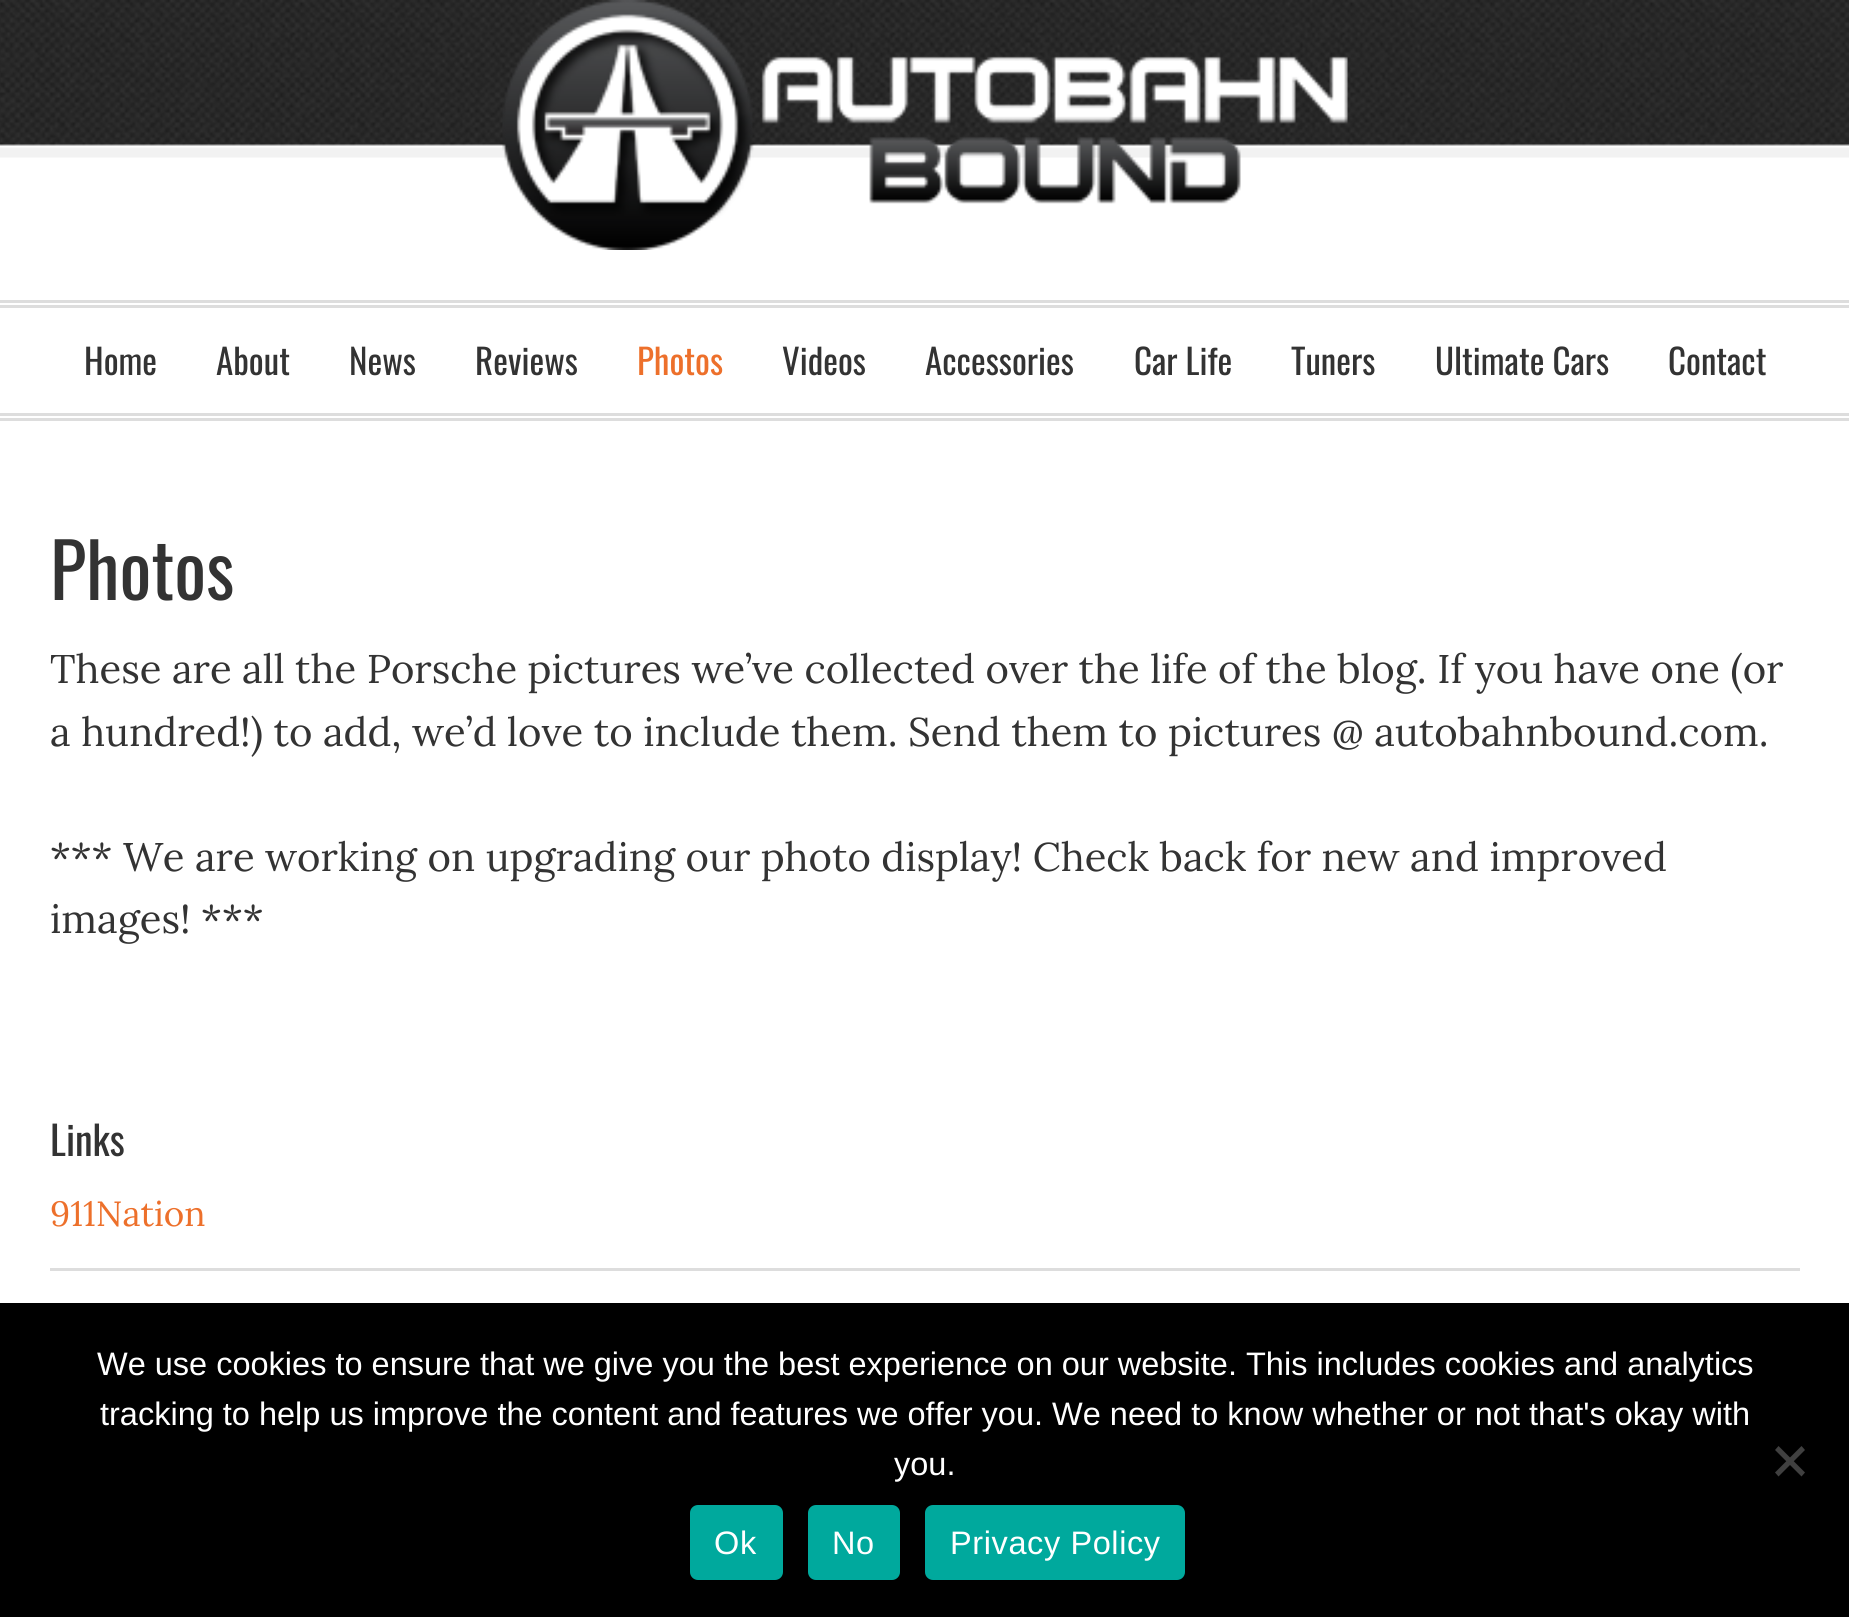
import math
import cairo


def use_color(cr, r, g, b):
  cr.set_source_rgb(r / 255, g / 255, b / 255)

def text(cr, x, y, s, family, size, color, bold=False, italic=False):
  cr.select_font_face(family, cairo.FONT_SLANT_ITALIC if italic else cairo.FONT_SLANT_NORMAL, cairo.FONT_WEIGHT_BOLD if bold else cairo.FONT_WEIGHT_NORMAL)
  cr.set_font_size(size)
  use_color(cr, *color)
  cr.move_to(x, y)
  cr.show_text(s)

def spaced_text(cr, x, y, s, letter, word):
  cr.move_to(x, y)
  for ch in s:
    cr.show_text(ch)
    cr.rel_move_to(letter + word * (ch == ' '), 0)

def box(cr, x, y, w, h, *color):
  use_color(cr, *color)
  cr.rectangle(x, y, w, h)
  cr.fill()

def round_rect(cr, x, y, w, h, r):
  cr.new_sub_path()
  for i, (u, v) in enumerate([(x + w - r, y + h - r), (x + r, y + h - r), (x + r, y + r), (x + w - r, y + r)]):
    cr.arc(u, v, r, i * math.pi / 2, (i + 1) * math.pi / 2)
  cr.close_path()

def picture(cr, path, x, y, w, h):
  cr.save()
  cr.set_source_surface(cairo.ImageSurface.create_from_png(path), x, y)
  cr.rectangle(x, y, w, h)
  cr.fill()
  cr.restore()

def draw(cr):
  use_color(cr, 255, 255, 255)
  cr.paint()
  picture(cr, "img_01.png", 0, 0, 1849, 158)
  picture(cr, "img_02.png", 502, 0, 846, 250)
  box(cr, 0, 300, 1849, 3, 221, 221, 221)
  box(cr, 0, 305, 1849, 3, 221, 221, 221)
  box(cr, 0, 413, 1849, 3, 221, 221, 221)
  box(cr, 0, 418, 1849, 3, 221, 221, 221)
  box(cr, 50, 1268, 1750, 3, 221, 221, 221)
  box(cr, 0, 1303, 1849, 314, 0, 0, 0)
  use_color(cr, 64, 64, 64)
  cr.new_path()
  cr.move_to(1801.5, 1446)
  cr.line_to(1805, 1450)
  cr.line_to(1778.5, 1476.5)
  cr.line_to(1775, 1472.5)
  cr.close_path()
  cr.fill()
  cr.new_path()
  cr.move_to(1775, 1450)
  cr.line_to(1778.5, 1446)
  cr.line_to(1805, 1472.5)
  cr.line_to(1801.5, 1476.5)
  cr.close_path()
  cr.fill()
  use_color(cr, 0, 169, 157)
  round_rect(cr, 690, 1505, 93, 75, 8)
  cr.fill()
  round_rect(cr, 808, 1505, 92, 75, 8)
  cr.fill()
  round_rect(cr, 925, 1505, 260, 75, 8)
  cr.fill()
  text(cr, 84, 375, "Home", "Oswald", 35, (51, 51, 51))
  text(cr, 216, 375, "About", "Oswald", 35, (51, 51, 51))
  text(cr, 349, 375, "News", "Oswald", 35, (51, 51, 51))
  text(cr, 475, 375, "Reviews", "Oswald", 35, (51, 51, 51))
  text(cr, 637, 375, "Photos", "Oswald", 35, (237, 112, 43))
  text(cr, 782, 375, "Videos", "Oswald", 35, (51, 51, 51))
  text(cr, 925, 375, "Accessories", "Oswald", 35, (51, 51, 51))
  text(cr, 1134, 375, "Car Life", "Oswald", 35, (51, 51, 51))
  text(cr, 1291, 375, "Tuners", "Oswald", 35, (51, 51, 51))
  text(cr, 1435, 375, "Ultimate Cars", "Oswald", 35, (51, 51, 51))
  text(cr, 1668, 375, "Contact", "Oswald", 35, (51, 51, 51))
  text(cr, 50, 600, "Photos", "Oswald", 75, (51, 51, 51))
  text(cr, 50, 683, "These are all the Porsche pictures we’ve collected over the life of the blog. If you have one (or", "Lora", 40, (51, 51, 51))
  text(cr, 50, 746, "a hundred!) to add, we’d love to include them. Send them to pictures @ autobahnbound.com.", "Lora", 40, (51, 51, 51))
  text(cr, 50, 871, "*** We are working on upgrading our photo display! Check back for new and improved", "Lora", 40, (51, 51, 51))
  text(cr, 50, 933, "images! ***", "Lora", 40, (51, 51, 51))
  text(cr, 50, 1156, "Links", "Oswald", 40, (51, 51, 51))
  text(cr, 50, 1226, "911Nation", "Lora", 35, (237, 112, 43))
  text(cr, 97, 1375, "We use cookies to ensure that we give you the best experience on our website. This includes cookies and analytics", "Liberation Sans", 32.5, (255, 255, 255))
  text(cr, 100, 1425, "tracking to help us improve the content and features we offer you. We need to know whether or not that's okay with", "Liberation Sans", 32.5, (255, 255, 255))
  text(cr, 894, 1475, "you.", "Liberation Sans", 32.5, (255, 255, 255))
  spaced_text(cr, 714, 1554, "Ok", 0.6, 0)
  spaced_text(cr, 832, 1554, "No", 0.6, 0)
  spaced_text(cr, 950, 1554, "Privacy Policy", 0.6, 0)


surface = cairo.ImageSurface(cairo.FORMAT_RGB24, 1849, 1617)
cr = cairo.Context(surface)
options = cairo.FontOptions()
options.set_hint_metrics(cairo.HINT_METRICS_OFF)
options.set_hint_style(cairo.HINT_STYLE_NONE)
cr.set_font_options(options)
cr.set_miter_limit(4)
draw(cr)
surface.write_to_png("out.png")
